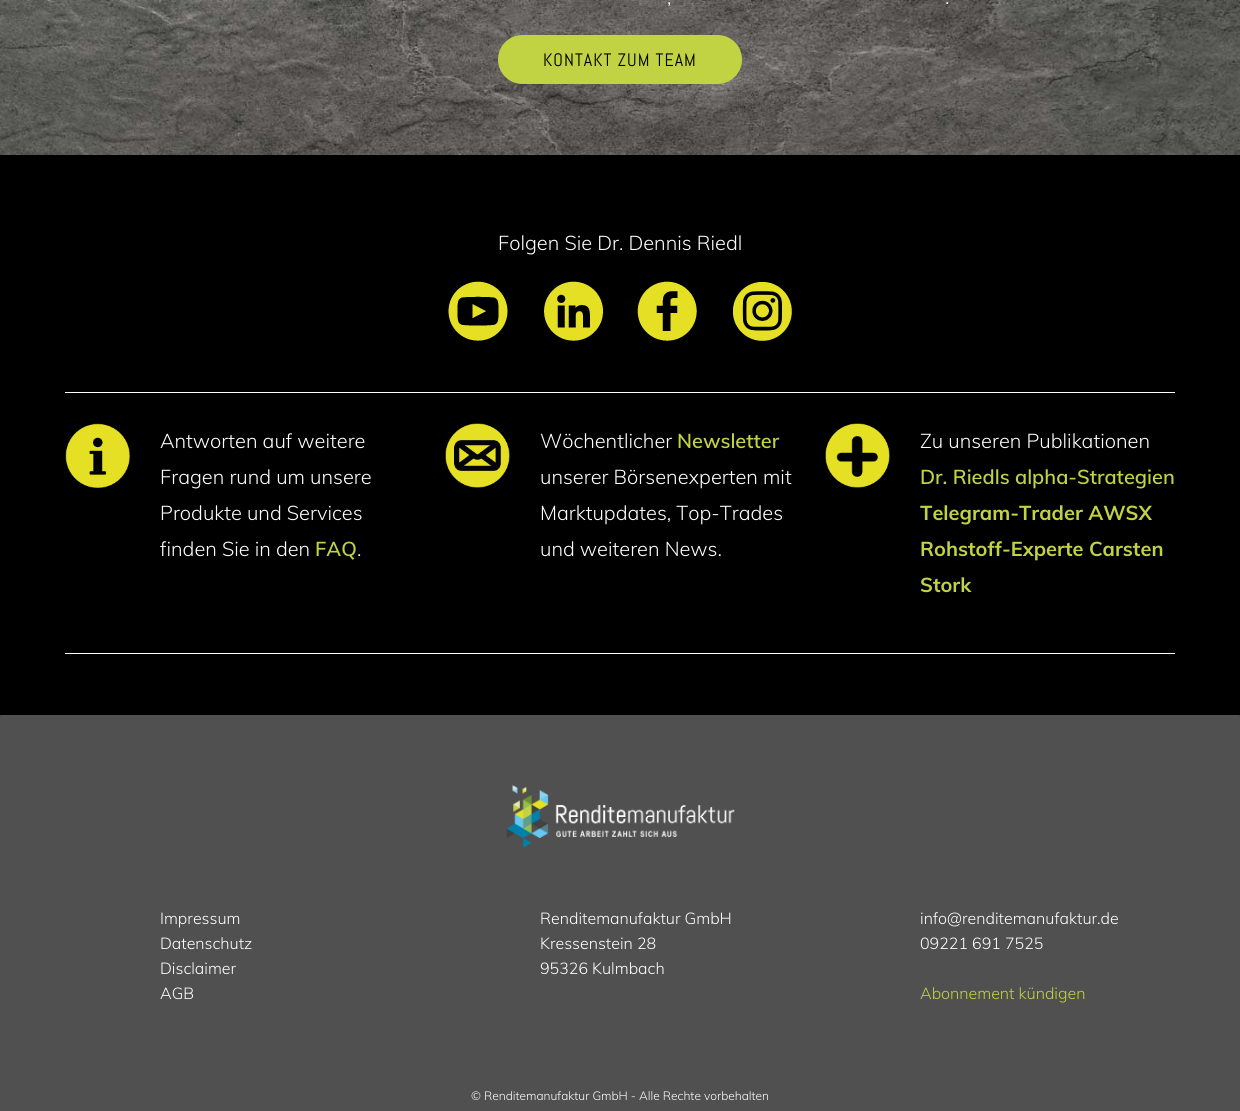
import math
import cairo


def use_color(cr, r, g, b):
  cr.set_source_rgb(r / 255, g / 255, b / 255)

def text(cr, x, y, s, family, size, color, bold=False, italic=False):
  cr.select_font_face(family, cairo.FONT_SLANT_ITALIC if italic else cairo.FONT_SLANT_NORMAL, cairo.FONT_WEIGHT_BOLD if bold else cairo.FONT_WEIGHT_NORMAL)
  cr.set_font_size(size)
  use_color(cr, *color)
  cr.move_to(x, y)
  cr.show_text(s)

def spaced_text(cr, x, y, s, letter, word):
  cr.move_to(x, y)
  for ch in s:
    cr.show_text(ch)
    cr.rel_move_to(letter + word * (ch == ' '), 0)

def box(cr, x, y, w, h, *color):
  use_color(cr, *color)
  cr.rectangle(x, y, w, h)
  cr.fill()

def round_rect(cr, x, y, w, h, r):
  cr.new_sub_path()
  for i, (u, v) in enumerate([(x + w - r, y + h - r), (x + r, y + h - r), (x + r, y + r), (x + w - r, y + r)]):
    cr.arc(u, v, r, i * math.pi / 2, (i + 1) * math.pi / 2)
  cr.close_path()

def picture(cr, path, x, y, w, h):
  cr.save()
  cr.set_source_surface(cairo.ImageSurface.create_from_png(path), x, y)
  cr.rectangle(x, y, w, h)
  cr.fill()
  cr.restore()

def draw(cr):
  use_color(cr, 0, 0, 0)
  cr.paint()
  picture(cr, "img_01.png", 0, 0, 1240, 155)
  use_color(cr, 193, 211, 66)
  round_rect(cr, 498, 35, 244, 49, 24.5)
  cr.fill()
  picture(cr, "img_02.png", 448, 281, 60, 60)
  picture(cr, "img_03.png", 544, 281, 59, 60)
  picture(cr, "img_04.png", 637, 281, 60, 60)
  picture(cr, "img_05.png", 733, 282, 59, 59)
  box(cr, 65, 392, 1110, 1, 255, 255, 255)
  picture(cr, "img_06.png", 65, 423, 65, 65)
  picture(cr, "img_07.png", 445, 423, 65, 65)
  picture(cr, "img_08.png", 825, 423, 65, 65)
  box(cr, 65, 653, 1110, 1, 255, 255, 255)
  use_color(cr, 80, 80, 80)
  round_rect(cr, 0, 715, 1240, 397, 1)
  cr.fill()
  picture(cr, "img_09.png", 506, 785, 229, 63)
  text(cr, 667, 4, ",", "Muli Light", 20, (255, 255, 255))
  text(cr, 945, 4, ".", "Muli Light", 20, (255, 255, 255))
  cr.select_font_face("Abel")
  cr.set_font_size(18)
  use_color(cr, 0, 0, 0)
  spaced_text(cr, 543, 66, "KONTAKT ZUM TEAM", 1, 0)
  text(cr, 498, 250, "Folgen Sie Dr. Dennis Riedl", "Muli Light", 20, (255, 255, 255))
  text(cr, 160, 448, "Antworten auf weitere", "Muli Light", 20, (255, 255, 255))
  text(cr, 160, 484, "Fragen rund um unsere", "Muli Light", 20, (255, 255, 255))
  text(cr, 160, 520, "Produkte und Services", "Muli Light", 20, (255, 255, 255))
  text(cr, 160, 556, "finden Sie in den", "Muli Light", 20, (255, 255, 255))
  text(cr, 315, 556, "FAQ", "Muli SemiBold", 20, (193, 211, 66))
  text(cr, 357, 556, ".", "Muli Light", 20, (255, 255, 255))
  text(cr, 540, 448, "Wöchentlicher", "Muli Light", 20, (255, 255, 255))
  text(cr, 677, 448, "Newsletter", "Muli SemiBold", 20, (193, 211, 66))
  text(cr, 540, 484, "unserer Börsenexperten mit", "Muli Light", 20, (255, 255, 255))
  text(cr, 540, 520, "Marktupdates, Top-Trades", "Muli Light", 20, (255, 255, 255))
  text(cr, 540, 556, "und weiteren News.", "Muli Light", 20, (255, 255, 255))
  text(cr, 920, 448, "Zu unseren Publikationen", "Muli Light", 20, (255, 255, 255))
  text(cr, 920, 484, "Dr. Riedls alpha-Strategien", "Muli SemiBold", 20, (193, 211, 66))
  text(cr, 920, 520, "Telegram-Trader AWSX", "Muli", 20, (193, 211, 66), bold=True)
  text(cr, 920, 556, "Rohstoff-Experte Carsten", "Muli", 20, (193, 211, 66), bold=True)
  text(cr, 920, 592, "Stork", "Muli", 20, (193, 211, 66), bold=True)
  text(cr, 160, 924, "Impressum", "Muli Light", 16, (255, 255, 255))
  text(cr, 160, 949, "Datenschutz", "Muli Light", 16, (255, 255, 255))
  text(cr, 160, 974, "Disclaimer", "Muli Light", 16, (255, 255, 255))
  text(cr, 160, 999, "AGB", "Muli Light", 16, (255, 255, 255))
  text(cr, 540, 924, "Renditemanufaktur GmbH", "Muli Light", 16, (255, 255, 255))
  text(cr, 540, 949, "Kressenstein 28", "Muli Light", 16, (255, 255, 255))
  text(cr, 540, 974, "95326 Kulmbach", "Muli Light", 16, (255, 255, 255))
  text(cr, 920, 924, "info@renditemanufaktur.de", "Muli Light", 16, (255, 255, 255))
  text(cr, 920, 949, "09221 691 7525", "Muli Light", 16, (255, 255, 255))
  text(cr, 920, 999, "Abonnement kündigen", "Muli Light", 16, (193, 211, 66))
  text(cr, 471, 1100, "© Renditemanufaktur GmbH - Alle Rechte vorbehalten", "Muli Light", 12, (255, 255, 255))


surface = cairo.ImageSurface(cairo.FORMAT_RGB24, 1240, 1111)
cr = cairo.Context(surface)
options = cairo.FontOptions()
options.set_hint_metrics(cairo.HINT_METRICS_OFF)
options.set_hint_style(cairo.HINT_STYLE_NONE)
cr.set_font_options(options)
cr.set_miter_limit(4)
draw(cr)
surface.write_to_png("out.png")
